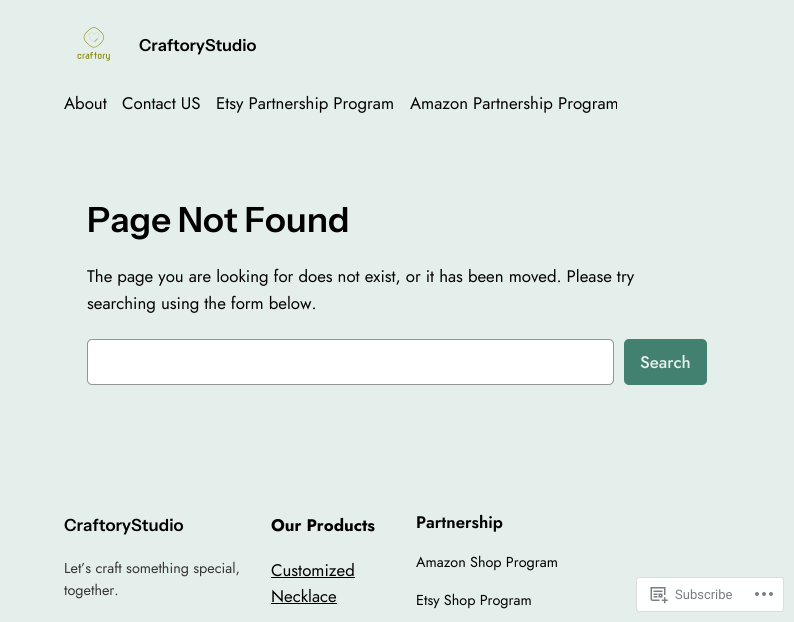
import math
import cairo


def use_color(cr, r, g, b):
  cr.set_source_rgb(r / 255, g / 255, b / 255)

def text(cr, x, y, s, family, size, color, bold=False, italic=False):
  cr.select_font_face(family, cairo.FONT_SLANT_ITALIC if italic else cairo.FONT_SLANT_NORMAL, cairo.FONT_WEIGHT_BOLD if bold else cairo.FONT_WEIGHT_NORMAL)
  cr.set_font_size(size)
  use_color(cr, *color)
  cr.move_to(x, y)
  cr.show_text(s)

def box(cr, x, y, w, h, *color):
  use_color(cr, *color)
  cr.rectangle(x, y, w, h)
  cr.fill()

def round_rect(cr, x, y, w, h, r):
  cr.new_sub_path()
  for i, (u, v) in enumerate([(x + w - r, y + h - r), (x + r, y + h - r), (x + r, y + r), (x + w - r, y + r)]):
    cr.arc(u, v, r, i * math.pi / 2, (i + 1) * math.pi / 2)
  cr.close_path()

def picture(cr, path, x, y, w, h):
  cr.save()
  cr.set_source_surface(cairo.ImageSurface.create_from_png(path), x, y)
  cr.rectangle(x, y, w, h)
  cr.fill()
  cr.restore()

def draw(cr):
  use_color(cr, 228, 239, 235)
  cr.paint()
  picture(cr, "img_01.png", 77, 27, 33, 34)
  use_color(cr, 255, 255, 255)
  round_rect(cr, 87.5, 339.5, 526, 45, 4.5)
  cr.fill_preserve()
  use_color(cr, 148, 148, 148)
  cr.set_line_width(1)
  cr.stroke()
  use_color(cr, 66, 129, 111)
  round_rect(cr, 624, 339, 83, 46, 5)
  cr.fill()
  box(cr, 271, 577, 84, 1, 0, 0, 0)
  box(cr, 271, 603, 66, 1, 0, 0, 0)
  use_color(cr, 254, 255, 255)
  round_rect(cr, 636.5, 577.5, 147, 34, 2.5)
  cr.fill_preserve()
  use_color(cr, 220, 220, 222)
  cr.stroke()
  picture(cr, "img_02.png", 650, 587, 18, 17)
  picture(cr, "img_03.png", 755, 592, 18, 4)
  text(cr, 139, 51, "CraftoryStudio", "Instrument Sans SemiBold", 16.5, (0, 0, 0))
  text(cr, 64, 109, "About", "Jost", 16.8, (0, 0, 0))
  text(cr, 122, 109, "Contact US", "Jost", 16.8, (0, 0, 0))
  text(cr, 216, 109, "Etsy Partnership Program", "Jost", 16.8, (0, 0, 0))
  text(cr, 410, 109, "Amazon Partnership Program", "Jost", 16.8, (0, 0, 0))
  text(cr, 87, 232, "Page Not Found", "Instrument Sans SemiBold", 34.75, (0, 0, 0))
  text(cr, 87, 282, "The page you are looking for does not exist, or it has been moved. Please try", "Jost", 16.8, (0, 0, 0))
  text(cr, 87, 309, "searching using the form below.", "Jost", 16.8, (0, 0, 0))
  text(cr, 640, 368, "Search", "Jost Medium", 16.8, (228, 239, 235))
  text(cr, 64, 531, "CraftoryStudio", "Instrument Sans SemiBold", 16.8, (0, 0, 0))
  text(cr, 64, 573, "Let’s craft something special,", "Jost", 14.4, (53, 53, 53))
  text(cr, 64, 595, "together.", "Jost", 14.4, (53, 53, 53))
  text(cr, 271, 531, "Our Products", "Jost", 16.8, (0, 0, 0), bold=True)
  text(cr, 271, 576, "Customized", "Jost", 16.8, (0, 0, 0))
  text(cr, 271, 602, "Necklace", "Jost", 16.8, (0, 0, 0))
  text(cr, 416, 528, "Partnership", "Jost SemiBold", 16.8, (0, 0, 0))
  text(cr, 416, 567, "Amazon Shop Program", "Jost", 14.4, (0, 0, 0))
  text(cr, 416, 605, "Etsy Shop Program", "Jost", 14.4, (0, 0, 0))
  text(cr, 675, 599, "Subscribe", "Roboto", 13, (122, 126, 132))


surface = cairo.ImageSurface(cairo.FORMAT_RGB24, 794, 622)
cr = cairo.Context(surface)
options = cairo.FontOptions()
options.set_hint_metrics(cairo.HINT_METRICS_OFF)
options.set_hint_style(cairo.HINT_STYLE_NONE)
cr.set_font_options(options)
cr.set_miter_limit(4)
draw(cr)
surface.write_to_png("out.png")
